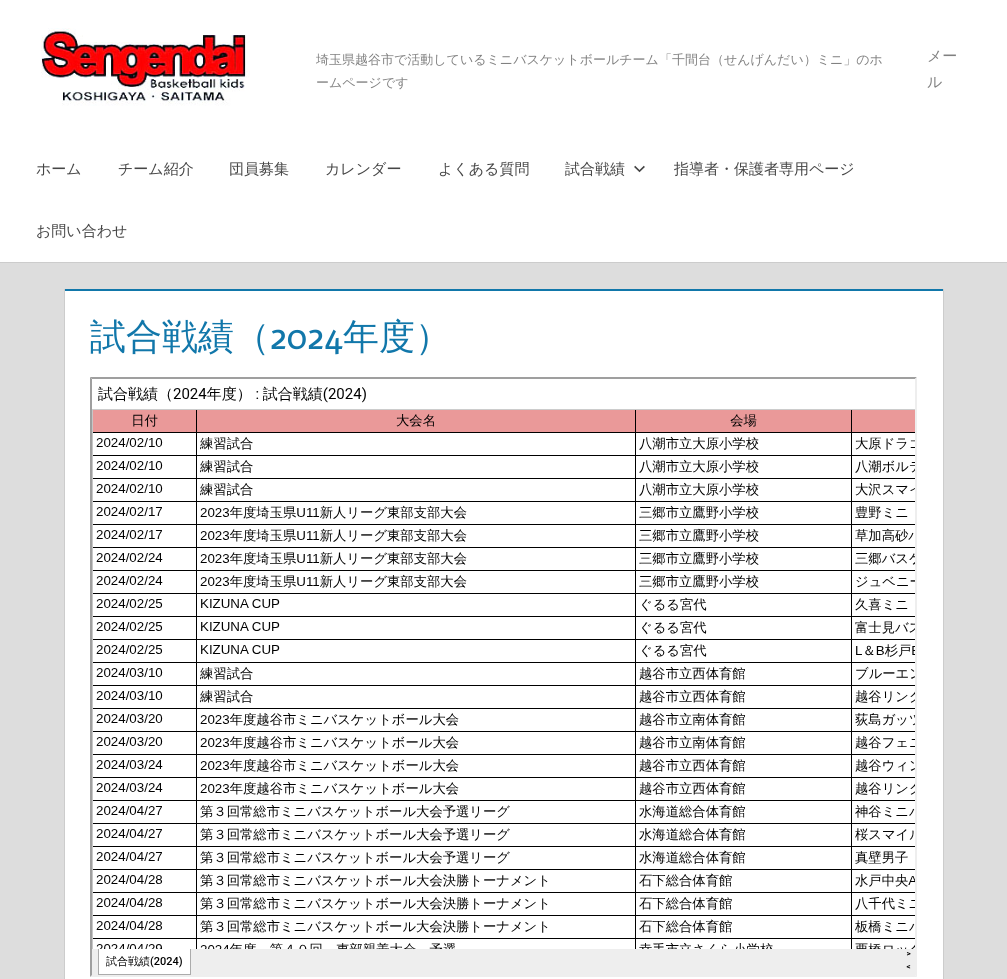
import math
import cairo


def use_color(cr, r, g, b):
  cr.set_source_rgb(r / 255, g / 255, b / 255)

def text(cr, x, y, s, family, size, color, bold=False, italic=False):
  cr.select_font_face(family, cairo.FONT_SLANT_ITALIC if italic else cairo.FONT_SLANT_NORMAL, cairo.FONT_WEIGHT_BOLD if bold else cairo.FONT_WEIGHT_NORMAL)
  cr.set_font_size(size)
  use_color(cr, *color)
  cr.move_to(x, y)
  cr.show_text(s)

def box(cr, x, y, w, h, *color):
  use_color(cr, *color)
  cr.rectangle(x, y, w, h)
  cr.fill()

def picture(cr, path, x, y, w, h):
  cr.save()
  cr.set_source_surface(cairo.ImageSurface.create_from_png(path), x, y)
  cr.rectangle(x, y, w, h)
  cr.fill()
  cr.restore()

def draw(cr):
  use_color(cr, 221, 221, 221)
  cr.paint()
  box(cr, 0, 0, 1007, 262, 255, 255, 255)
  picture(cr, "img_01.png", 41, 28, 209, 78)
  box(cr, 0, 262, 1007, 1, 204, 204, 204)
  picture(cr, "img_02.png", 634, 165, 11, 8)
  box(cr, 65, 291, 878, 688, 255, 255, 255)
  box(cr, 65, 289, 878, 2, 17, 119, 170)
  use_color(cr, 204, 204, 204)
  cr.new_path()
  cr.move_to(944, 289)
  cr.line_to(944, 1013)
  cr.line_to(943, 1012)
  cr.line_to(943, 289)
  cr.close_path()
  cr.fill()
  cr.new_path()
  cr.move_to(64, 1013)
  cr.line_to(64, 289)
  cr.line_to(65, 289)
  cr.line_to(65, 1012)
  cr.close_path()
  cr.fill()
  use_color(cr, 159, 159, 159)
  cr.new_path()
  cr.move_to(90, 377)
  cr.line_to(917, 377)
  cr.line_to(915, 379)
  cr.line_to(92, 379)
  cr.close_path()
  cr.fill()
  use_color(cr, 238, 238, 238)
  cr.new_path()
  cr.move_to(917, 377)
  cr.line_to(917, 977)
  cr.line_to(915, 975)
  cr.line_to(915, 379)
  cr.close_path()
  cr.fill()
  cr.new_path()
  cr.move_to(917, 977)
  cr.line_to(90, 977)
  cr.line_to(92, 975)
  cr.line_to(915, 975)
  cr.close_path()
  cr.fill()
  use_color(cr, 159, 159, 159)
  cr.new_path()
  cr.move_to(90, 977)
  cr.line_to(90, 377)
  cr.line_to(92, 379)
  cr.line_to(92, 975)
  cr.close_path()
  cr.fill()
  picture(cr, "img_03.png", 92, 386, 823, 589)
  text(cr, 316, 64, "埼玉県越谷市で活動しているミニバスケットボールチーム「千間台（せんげんだい）ミニ」のホ", "WenQuanYi Zen Hei Medium", 13, (128, 128, 128))
  text(cr, 316, 87, "ームページです", "WenQuanYi Zen Hei Medium", 13, (128, 128, 128))
  text(cr, 927, 61, "メー", "WenQuanYi Zen Hei Medium", 15, (128, 128, 128))
  text(cr, 927, 87, "ル", "WenQuanYi Zen Hei Medium", 15, (128, 128, 128))
  text(cr, 36, 174, "ホーム", "WenQuanYi Zen Hei Medium", 15, (69, 69, 69))
  text(cr, 118, 174, "チーム紹介", "WenQuanYi Zen Hei Medium", 15, (69, 69, 69))
  text(cr, 229, 174, "団員募集", "WenQuanYi Zen Hei Medium", 15, (69, 69, 69))
  text(cr, 325, 174, "カレンダー", "WenQuanYi Zen Hei Medium", 15, (69, 69, 69))
  text(cr, 438, 174, "よくある質問", "WenQuanYi Zen Hei Medium", 15, (69, 69, 69))
  text(cr, 565, 174, "試合戦績", "WenQuanYi Zen Hei Medium", 15, (69, 69, 69))
  text(cr, 674, 174, "指導者・保護者専用ページ", "WenQuanYi Zen Hei Medium", 15, (69, 69, 69))
  text(cr, 36, 236, "お問い合わせ", "WenQuanYi Zen Hei Medium", 15, (69, 69, 69))
  text(cr, 90, 349, "試合戦績（", "WenQuanYi Zen Hei Medium", 36, (17, 119, 170))
  text(cr, 270, 349, "2024", "Magra", 36, (17, 119, 170))
  text(cr, 343, 349, "年度）", "WenQuanYi Zen Hei Medium", 36, (17, 119, 170))


surface = cairo.ImageSurface(cairo.FORMAT_RGB24, 1007, 979)
cr = cairo.Context(surface)
options = cairo.FontOptions()
options.set_hint_metrics(cairo.HINT_METRICS_OFF)
options.set_hint_style(cairo.HINT_STYLE_NONE)
cr.set_font_options(options)
cr.set_miter_limit(4)
draw(cr)
surface.write_to_png("out.png")
